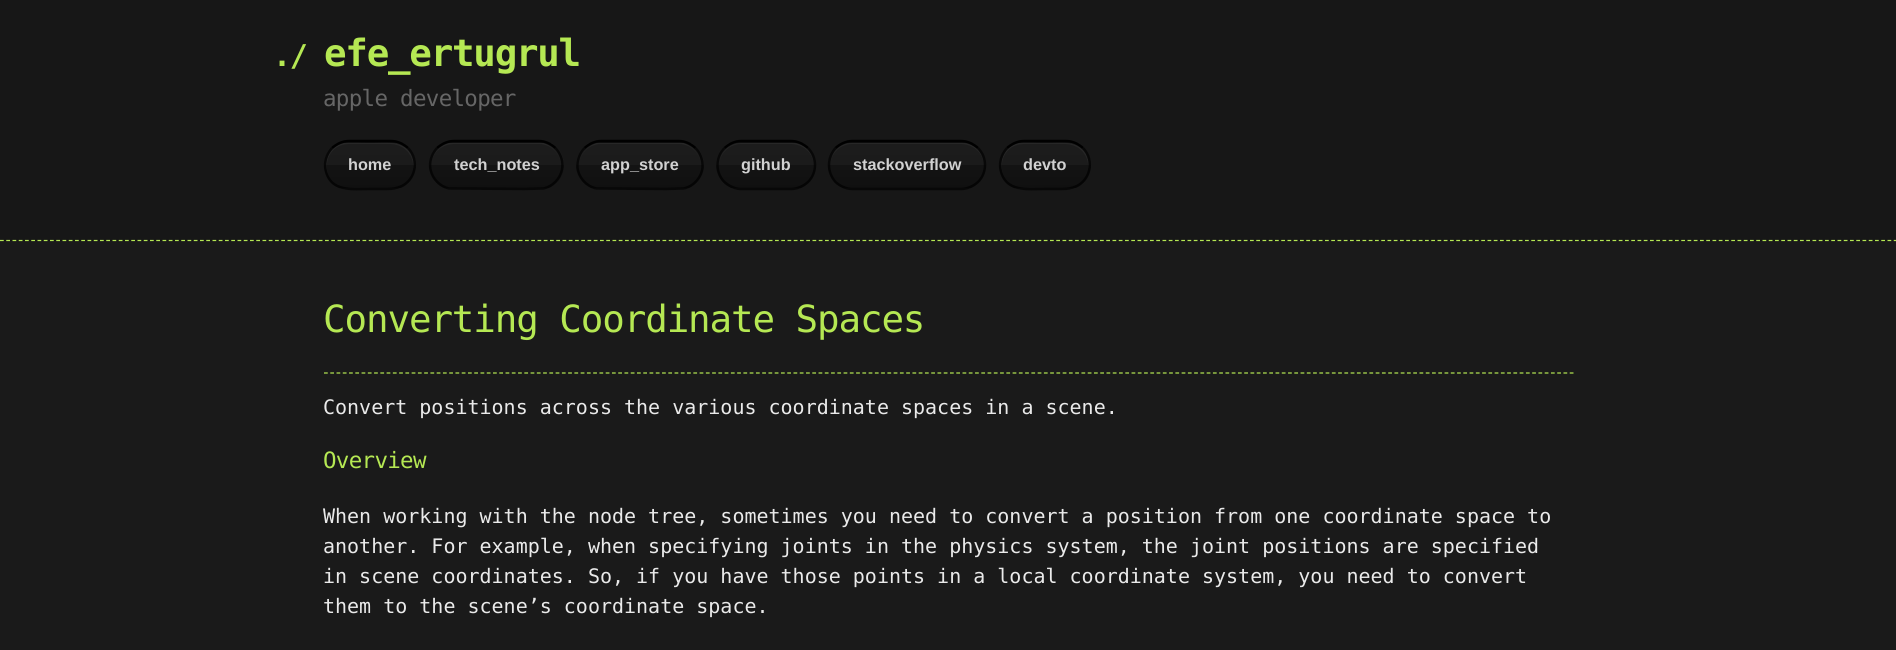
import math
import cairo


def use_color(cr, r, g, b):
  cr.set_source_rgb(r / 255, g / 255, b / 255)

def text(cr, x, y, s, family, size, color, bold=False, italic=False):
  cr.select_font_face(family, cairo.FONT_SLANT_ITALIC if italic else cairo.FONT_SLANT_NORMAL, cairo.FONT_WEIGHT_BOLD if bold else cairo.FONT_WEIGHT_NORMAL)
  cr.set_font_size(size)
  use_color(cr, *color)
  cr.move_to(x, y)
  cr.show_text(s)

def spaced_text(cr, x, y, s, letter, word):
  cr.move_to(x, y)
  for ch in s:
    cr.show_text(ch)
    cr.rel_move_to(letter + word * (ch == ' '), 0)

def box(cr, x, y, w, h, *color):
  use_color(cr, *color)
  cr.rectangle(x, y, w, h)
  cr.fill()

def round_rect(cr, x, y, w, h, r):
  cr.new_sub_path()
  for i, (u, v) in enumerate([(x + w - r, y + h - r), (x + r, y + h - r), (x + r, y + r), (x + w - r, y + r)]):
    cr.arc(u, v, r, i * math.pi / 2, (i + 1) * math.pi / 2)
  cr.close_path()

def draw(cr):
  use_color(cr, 26, 26, 26)
  cr.paint()
  box(cr, 0, 0, 1896, 241, 23, 23, 23)
  cr.new_path()
  cr.move_to(0, 240.5)
  cr.line_to(1896, 240.5)
  use_color(cr, 181, 232, 83)
  cr.set_line_width(1.2)
  cr.set_dash([3.75, 2.5])
  cr.stroke()
  cr.save()
  round_rect(cr, 324, 140, 92, 50, 25)
  cr.clip()
  gradient = cairo.LinearGradient(370, 98, 370, 143)
  gradient.add_color_stop_rgba(0, 0.11, 0.11, 0.11, 1)
  gradient.add_color_stop_rgba(0.5, 0.106, 0.106, 0.106, 1)
  gradient.add_color_stop_rgba(0.5, 0.075, 0.075, 0.075, 1)
  gradient.add_color_stop_rgba(1, 0.063, 0.063, 0.063, 1)
  cr.set_source(gradient)
  cr.rectangle(337, 140, 66, 3)
  cr.fill()
  gradient = cairo.LinearGradient(370, 143, 370, 188)
  gradient.add_color_stop_rgba(0, 0.11, 0.11, 0.11, 1)
  gradient.add_color_stop_rgba(0.5, 0.106, 0.106, 0.106, 1)
  gradient.add_color_stop_rgba(0.5, 0.075, 0.075, 0.075, 1)
  gradient.add_color_stop_rgba(1, 0.063, 0.063, 0.063, 1)
  cr.set_source(gradient)
  cr.rectangle(324, 143, 92, 45)
  cr.fill()
  gradient = cairo.LinearGradient(370, 188, 370, 233)
  gradient.add_color_stop_rgba(0, 0.11, 0.11, 0.11, 1)
  gradient.add_color_stop_rgba(0.5, 0.106, 0.106, 0.106, 1)
  gradient.add_color_stop_rgba(0.5, 0.075, 0.075, 0.075, 1)
  gradient.add_color_stop_rgba(1, 0.063, 0.063, 0.063, 1)
  cr.set_source(gradient)
  cr.rectangle(339, 188, 62, 2)
  cr.fill()
  cr.restore()
  cr.set_source_rgba(1, 1, 1, 0.05)
  cr.new_path()
  cr.move_to(349, 144)
  cr.line_to(391, 144)
  cr.curve_to(407, 145, 415, 158, 413, 171)
  cr.curve_to(414, 166, 414, 161, 412, 157)
  cr.curve_to(405, 139, 385, 143, 370, 143)
  cr.curve_to(362, 143, 351, 142, 344, 143)
  cr.curve_to(328, 147, 321, 165, 330, 178)
  cr.curve_to(322, 165, 329, 144, 349, 144)
  cr.close_path()
  cr.fill()
  cr.new_path()
  cr.move_to(332, 148)
  cr.curve_to(336.5, 144, 342.5, 141, 349, 141)
  cr.line_to(391, 141)
  cr.curve_to(397.5, 141, 403.5, 144, 408, 148)
  use_color(cr, 0, 0, 0)
  cr.set_line_width(2.5)
  cr.set_dash([])
  cr.stroke()
  cr.new_path()
  cr.move_to(408, 148)
  cr.curve_to(420.5, 160.5, 415, 182.5, 398, 187.5)
  cr.curve_to(393.5, 189, 389, 189, 384, 189)
  cr.line_to(370, 189)
  cr.curve_to(352.5, 189, 330, 192.5, 325.5, 169.5)
  cr.curve_to(324, 162, 326.5, 154, 332, 148)
  cr.set_source_rgba(0, 0, 0, 0.7)
  cr.stroke()
  cr.save()
  round_rect(cr, 429, 140, 135, 50, 25)
  cr.clip()
  gradient = cairo.LinearGradient(496, 98, 496, 143)
  gradient.add_color_stop_rgba(0, 0.11, 0.11, 0.11, 1)
  gradient.add_color_stop_rgba(0.5, 0.106, 0.106, 0.106, 1)
  gradient.add_color_stop_rgba(0.5, 0.075, 0.075, 0.075, 1)
  gradient.add_color_stop_rgba(1, 0.063, 0.063, 0.063, 1)
  cr.set_source(gradient)
  cr.rectangle(442, 140, 109, 3)
  cr.fill()
  gradient = cairo.LinearGradient(496, 143, 496, 188)
  gradient.add_color_stop_rgba(0, 0.11, 0.11, 0.11, 1)
  gradient.add_color_stop_rgba(0.5, 0.106, 0.106, 0.106, 1)
  gradient.add_color_stop_rgba(0.5, 0.075, 0.075, 0.075, 1)
  gradient.add_color_stop_rgba(1, 0.063, 0.063, 0.063, 1)
  cr.set_source(gradient)
  cr.rectangle(429, 143, 135, 45)
  cr.fill()
  gradient = cairo.LinearGradient(496, 188, 496, 233)
  gradient.add_color_stop_rgba(0, 0.11, 0.11, 0.11, 1)
  gradient.add_color_stop_rgba(0.5, 0.106, 0.106, 0.106, 1)
  gradient.add_color_stop_rgba(0.5, 0.075, 0.075, 0.075, 1)
  gradient.add_color_stop_rgba(1, 0.063, 0.063, 0.063, 1)
  cr.set_source(gradient)
  cr.rectangle(444, 188, 105, 2)
  cr.fill()
  cr.restore()
  use_color(cr, 39, 39, 39)
  cr.new_path()
  cr.move_to(454, 144)
  cr.line_to(539, 144)
  cr.curve_to(551, 144, 561, 154, 561, 166)
  cr.curve_to(561, 155, 553, 146, 543, 143)
  cr.line_to(524, 143)
  cr.line_to(449, 143)
  cr.curve_to(439, 146, 431, 155, 431, 166)
  cr.curve_to(431, 154, 441, 144, 454, 144)
  cr.close_path()
  cr.fill()
  cr.new_path()
  cr.move_to(437, 148)
  cr.curve_to(441.5, 144, 447.5, 141, 454, 141)
  cr.line_to(539, 141)
  cr.curve_to(545, 141, 551, 144, 555.5, 148)
  use_color(cr, 0, 0, 0)
  cr.stroke()
  cr.new_path()
  cr.move_to(555.5, 148)
  cr.curve_to(561, 154, 563.5, 162, 562, 169.5)
  cr.curve_to(560, 179, 552.5, 186.5, 543.5, 188.5)
  cr.line_to(524.5, 189)
  cr.line_to(449, 188.5)
  cr.curve_to(440, 186.5, 432.5, 179, 430.5, 169.5)
  cr.curve_to(429, 162, 431.5, 154, 437, 148)
  cr.set_source_rgba(0, 0, 0, 0.7)
  cr.stroke()
  cr.save()
  round_rect(cr, 576, 140, 128, 50, 25)
  cr.clip()
  gradient = cairo.LinearGradient(640, 98, 640, 143)
  gradient.add_color_stop_rgba(0, 0.11, 0.11, 0.11, 1)
  gradient.add_color_stop_rgba(0.5, 0.106, 0.106, 0.106, 1)
  gradient.add_color_stop_rgba(0.5, 0.075, 0.075, 0.075, 1)
  gradient.add_color_stop_rgba(1, 0.063, 0.063, 0.063, 1)
  cr.set_source(gradient)
  cr.rectangle(589, 140, 102, 3)
  cr.fill()
  gradient = cairo.LinearGradient(640, 143, 640, 188)
  gradient.add_color_stop_rgba(0, 0.11, 0.11, 0.11, 1)
  gradient.add_color_stop_rgba(0.5, 0.106, 0.106, 0.106, 1)
  gradient.add_color_stop_rgba(0.5, 0.075, 0.075, 0.075, 1)
  gradient.add_color_stop_rgba(1, 0.063, 0.063, 0.063, 1)
  cr.set_source(gradient)
  cr.rectangle(576, 143, 128, 45)
  cr.fill()
  gradient = cairo.LinearGradient(640, 188, 640, 233)
  gradient.add_color_stop_rgba(0, 0.11, 0.11, 0.11, 1)
  gradient.add_color_stop_rgba(0.5, 0.106, 0.106, 0.106, 1)
  gradient.add_color_stop_rgba(0.5, 0.075, 0.075, 0.075, 1)
  gradient.add_color_stop_rgba(1, 0.063, 0.063, 0.063, 1)
  cr.set_source(gradient)
  cr.rectangle(591, 188, 98, 2)
  cr.fill()
  cr.restore()
  use_color(cr, 39, 39, 39)
  cr.new_path()
  cr.move_to(601, 144)
  cr.line_to(679, 144)
  cr.curve_to(691, 144, 701, 154, 701, 166)
  cr.curve_to(701, 155, 693, 146, 683, 143)
  cr.line_to(666, 143)
  cr.line_to(597, 143)
  cr.curve_to(587, 146, 579, 155, 579, 166)
  cr.curve_to(579, 154, 589, 144, 601, 144)
  cr.close_path()
  cr.fill()
  cr.new_path()
  cr.move_to(584.5, 148)
  cr.curve_to(589, 144, 595, 141, 601, 141)
  cr.line_to(679, 141)
  cr.curve_to(685, 141, 691, 144, 695.5, 148)
  use_color(cr, 0, 0, 0)
  cr.stroke()
  cr.new_path()
  cr.move_to(695.5, 148)
  cr.curve_to(700.5, 153, 703, 160.5, 702.5, 167.5)
  cr.curve_to(701.5, 177.5, 693.5, 186.5, 683.5, 188.5)
  cr.line_to(666, 189)
  cr.line_to(596.5, 188.5)
  cr.curve_to(586.5, 186.5, 578.5, 177.5, 577.5, 167.5)
  cr.curve_to(577, 160.5, 579.5, 153, 584.5, 148)
  cr.set_source_rgba(0, 0, 0, 0.7)
  cr.stroke()
  cr.save()
  round_rect(cr, 716, 140, 100, 50, 25)
  cr.clip()
  gradient = cairo.LinearGradient(766, 98, 766, 143)
  gradient.add_color_stop_rgba(0, 0.11, 0.11, 0.11, 1)
  gradient.add_color_stop_rgba(0.5, 0.106, 0.106, 0.106, 1)
  gradient.add_color_stop_rgba(0.5, 0.075, 0.075, 0.075, 1)
  gradient.add_color_stop_rgba(1, 0.063, 0.063, 0.063, 1)
  cr.set_source(gradient)
  cr.rectangle(729, 140, 74, 3)
  cr.fill()
  gradient = cairo.LinearGradient(766, 143, 766, 188)
  gradient.add_color_stop_rgba(0, 0.11, 0.11, 0.11, 1)
  gradient.add_color_stop_rgba(0.5, 0.106, 0.106, 0.106, 1)
  gradient.add_color_stop_rgba(0.5, 0.075, 0.075, 0.075, 1)
  gradient.add_color_stop_rgba(1, 0.063, 0.063, 0.063, 1)
  cr.set_source(gradient)
  cr.rectangle(716, 143, 100, 45)
  cr.fill()
  gradient = cairo.LinearGradient(766, 188, 766, 233)
  gradient.add_color_stop_rgba(0, 0.11, 0.11, 0.11, 1)
  gradient.add_color_stop_rgba(0.5, 0.106, 0.106, 0.106, 1)
  gradient.add_color_stop_rgba(0.5, 0.075, 0.075, 0.075, 1)
  gradient.add_color_stop_rgba(1, 0.063, 0.063, 0.063, 1)
  cr.set_source(gradient)
  cr.rectangle(731, 188, 70, 2)
  cr.fill()
  cr.restore()
  use_color(cr, 39, 39, 39)
  cr.new_path()
  cr.move_to(741, 144)
  cr.line_to(791, 144)
  cr.curve_to(804, 144, 814, 154, 814, 166)
  cr.curve_to(814, 153, 804, 143, 792, 143)
  cr.line_to(742, 143)
  cr.curve_to(729, 143, 719, 153, 719, 166)
  cr.curve_to(719, 154, 729, 144, 741, 144)
  cr.close_path()
  cr.fill()
  cr.new_path()
  cr.move_to(724.5, 148)
  cr.curve_to(729, 144, 735, 141, 741, 141)
  cr.line_to(791, 141)
  cr.curve_to(797.5, 141, 803.5, 144, 808, 148)
  use_color(cr, 0, 0, 0)
  cr.stroke()
  cr.new_path()
  cr.move_to(808, 148)
  cr.curve_to(812.5, 152.5, 815, 158.5, 815, 165)
  cr.curve_to(815, 171.5, 812.5, 177.5, 808, 182)
  cr.curve_to(803.5, 186, 797.5, 189, 791, 189)
  cr.line_to(741, 189)
  cr.curve_to(735, 189, 729, 186, 724.5, 182)
  cr.curve_to(720, 177.5, 717.5, 171.5, 717.5, 165)
  cr.curve_to(717.5, 158.5, 720, 152.5, 724.5, 148)
  cr.set_source_rgba(0, 0, 0, 0.7)
  cr.stroke()
  cr.save()
  round_rect(cr, 828, 140, 158, 50, 25)
  cr.clip()
  gradient = cairo.LinearGradient(907, 98, 907, 143)
  gradient.add_color_stop_rgba(0, 0.11, 0.11, 0.11, 1)
  gradient.add_color_stop_rgba(0.5, 0.106, 0.106, 0.106, 1)
  gradient.add_color_stop_rgba(0.5, 0.075, 0.075, 0.075, 1)
  gradient.add_color_stop_rgba(1, 0.063, 0.063, 0.063, 1)
  cr.set_source(gradient)
  cr.rectangle(841, 140, 132, 3)
  cr.fill()
  gradient = cairo.LinearGradient(907, 143, 907, 188)
  gradient.add_color_stop_rgba(0, 0.11, 0.11, 0.11, 1)
  gradient.add_color_stop_rgba(0.5, 0.106, 0.106, 0.106, 1)
  gradient.add_color_stop_rgba(0.5, 0.075, 0.075, 0.075, 1)
  gradient.add_color_stop_rgba(1, 0.063, 0.063, 0.063, 1)
  cr.set_source(gradient)
  cr.rectangle(828, 143, 158, 45)
  cr.fill()
  gradient = cairo.LinearGradient(907, 188, 907, 233)
  gradient.add_color_stop_rgba(0, 0.11, 0.11, 0.11, 1)
  gradient.add_color_stop_rgba(0.5, 0.106, 0.106, 0.106, 1)
  gradient.add_color_stop_rgba(0.5, 0.075, 0.075, 0.075, 1)
  gradient.add_color_stop_rgba(1, 0.063, 0.063, 0.063, 1)
  cr.set_source(gradient)
  cr.rectangle(843, 188, 128, 2)
  cr.fill()
  cr.restore()
  use_color(cr, 39, 39, 39)
  cr.new_path()
  cr.move_to(852, 144)
  cr.line_to(961, 144)
  cr.curve_to(974, 144, 984, 154, 984, 166)
  cr.curve_to(984, 153, 974, 143, 962, 143)
  cr.line_to(852, 143)
  cr.curve_to(840, 143, 830, 153, 830, 166)
  cr.curve_to(830, 154, 840, 144, 852, 144)
  cr.close_path()
  cr.fill()
  cr.new_path()
  cr.move_to(835.5, 148)
  cr.curve_to(840, 144, 846, 141, 852.5, 141)
  cr.line_to(961, 141)
  cr.curve_to(967.5, 141, 973.5, 144, 978, 148)
  use_color(cr, 0, 0, 0)
  cr.stroke()
  cr.new_path()
  cr.move_to(978, 148)
  cr.curve_to(982.5, 152.5, 985, 158.5, 985, 165)
  cr.curve_to(985, 171.5, 982.5, 177.5, 978, 182)
  cr.curve_to(973.5, 186, 967.5, 189, 961, 189)
  cr.line_to(852.5, 189)
  cr.curve_to(846, 189, 840, 186, 835.5, 182)
  cr.curve_to(831.5, 177.5, 829, 171.5, 829, 165)
  cr.curve_to(829, 158.5, 831.5, 152.5, 835.5, 148)
  cr.set_source_rgba(0, 0, 0, 0.7)
  cr.stroke()
  cr.save()
  round_rect(cr, 999, 140, 92, 50, 25)
  cr.clip()
  gradient = cairo.LinearGradient(1045, 98, 1045, 143)
  gradient.add_color_stop_rgba(0, 0.11, 0.11, 0.11, 1)
  gradient.add_color_stop_rgba(0.5, 0.106, 0.106, 0.106, 1)
  gradient.add_color_stop_rgba(0.5, 0.075, 0.075, 0.075, 1)
  gradient.add_color_stop_rgba(1, 0.063, 0.063, 0.063, 1)
  cr.set_source(gradient)
  cr.rectangle(1012, 140, 66, 3)
  cr.fill()
  gradient = cairo.LinearGradient(1045, 143, 1045, 188)
  gradient.add_color_stop_rgba(0, 0.11, 0.11, 0.11, 1)
  gradient.add_color_stop_rgba(0.5, 0.106, 0.106, 0.106, 1)
  gradient.add_color_stop_rgba(0.5, 0.075, 0.075, 0.075, 1)
  gradient.add_color_stop_rgba(1, 0.063, 0.063, 0.063, 1)
  cr.set_source(gradient)
  cr.rectangle(999, 143, 92, 45)
  cr.fill()
  gradient = cairo.LinearGradient(1045, 188, 1045, 233)
  gradient.add_color_stop_rgba(0, 0.11, 0.11, 0.11, 1)
  gradient.add_color_stop_rgba(0.5, 0.106, 0.106, 0.106, 1)
  gradient.add_color_stop_rgba(0.5, 0.075, 0.075, 0.075, 1)
  gradient.add_color_stop_rgba(1, 0.063, 0.063, 0.063, 1)
  cr.set_source(gradient)
  cr.rectangle(1014, 188, 62, 2)
  cr.fill()
  cr.restore()
  cr.set_source_rgba(1, 1, 1, 0.05)
  cr.new_path()
  cr.move_to(1024, 144)
  cr.line_to(1066, 144)
  cr.curve_to(1082, 145, 1090, 158, 1088, 171)
  cr.curve_to(1089, 166, 1089, 161, 1087, 157)
  cr.curve_to(1080, 139, 1060, 143, 1045, 143)
  cr.curve_to(1037, 143, 1026, 142, 1019, 143)
  cr.curve_to(1003, 147, 996, 165, 1005, 178)
  cr.curve_to(997, 165, 1004, 144, 1024, 144)
  cr.close_path()
  cr.fill()
  cr.new_path()
  cr.move_to(1007, 148)
  cr.curve_to(1011.5, 144, 1017.5, 141, 1024, 141)
  cr.line_to(1066, 141)
  cr.curve_to(1072.5, 141, 1078.5, 144, 1083, 148)
  use_color(cr, 0, 0, 0)
  cr.stroke()
  cr.new_path()
  cr.move_to(1083, 148)
  cr.curve_to(1095.5, 160.5, 1090, 182.5, 1073, 187.5)
  cr.curve_to(1068.5, 189, 1064, 189, 1059, 189)
  cr.line_to(1045, 189)
  cr.curve_to(1027.5, 189, 1005, 192.5, 1000.5, 169.5)
  cr.curve_to(999, 162, 1001.5, 154, 1007, 148)
  cr.set_source_rgba(0, 0, 0, 0.7)
  cr.stroke()
  cr.new_path()
  cr.move_to(324, 373)
  cr.line_to(1574, 373)
  use_color(cr, 181, 232, 83)
  cr.set_line_width(1.2)
  cr.set_dash([3.75, 2.51])
  cr.stroke()
  cr.select_font_face("DejaVu Sans Mono", cairo.FONT_SLANT_NORMAL, cairo.FONT_WEIGHT_BOLD)
  cr.set_font_size(30)
  spaced_text(cr, 273, 66, "./", -1.25, 0)
  cr.set_font_size(37.5)
  spaced_text(cr, 324, 66, "efe_ertugrul", -1.25, 0)
  cr.select_font_face("DejaVu Sans Mono")
  cr.set_font_size(22.5)
  use_color(cr, 102, 102, 102)
  spaced_text(cr, 323, 106, "apple developer", -0.7, 0)
  text(cr, 348, 170, "home", "Liberation Sans", 16.25, (209, 209, 209), bold=True)
  text(cr, 454, 170, "tech_notes", "Liberation Sans", 16.25, (209, 209, 209), bold=True)
  text(cr, 601, 170, "app_store", "Liberation Sans", 16.25, (209, 209, 209), bold=True)
  text(cr, 741, 170, "github", "Liberation Sans", 16.25, (209, 209, 209), bold=True)
  text(cr, 853, 170, "stackoverflow", "Liberation Sans", 16.25, (209, 209, 209), bold=True)
  text(cr, 1023, 170, "devto", "Liberation Sans", 16.25, (209, 209, 209), bold=True)
  cr.select_font_face("DejaVu Sans Mono")
  cr.set_font_size(37.5)
  use_color(cr, 181, 232, 83)
  spaced_text(cr, 323, 332, "Converting Coordinate Spaces", -1.1, 0)
  text(cr, 323, 414, "Convert positions across the various coordinate spaces in a scene.", "DejaVu Sans Mono", 20, (234, 234, 234))
  cr.set_font_size(22.5)
  use_color(cr, 181, 232, 83)
  spaced_text(cr, 323, 468, "Overview", -0.7, 0)
  text(cr, 323, 523, "When working with the node tree, sometimes you need to convert a position from one coordinate space to", "DejaVu Sans Mono", 20, (234, 234, 234))
  text(cr, 323, 553, "another. For example, when specifying joints in the physics system, the joint positions are specified", "DejaVu Sans Mono", 20, (234, 234, 234))
  text(cr, 323, 583, "in scene coordinates. So, if you have those points in a local coordinate system, you need to convert", "DejaVu Sans Mono", 20, (234, 234, 234))
  text(cr, 323, 613, "them to the scene’s coordinate space.", "DejaVu Sans Mono", 20, (234, 234, 234))


surface = cairo.ImageSurface(cairo.FORMAT_RGB24, 1896, 650)
cr = cairo.Context(surface)
options = cairo.FontOptions()
options.set_hint_metrics(cairo.HINT_METRICS_OFF)
options.set_hint_style(cairo.HINT_STYLE_NONE)
cr.set_font_options(options)
cr.set_miter_limit(4)
draw(cr)
surface.write_to_png("out.png")
